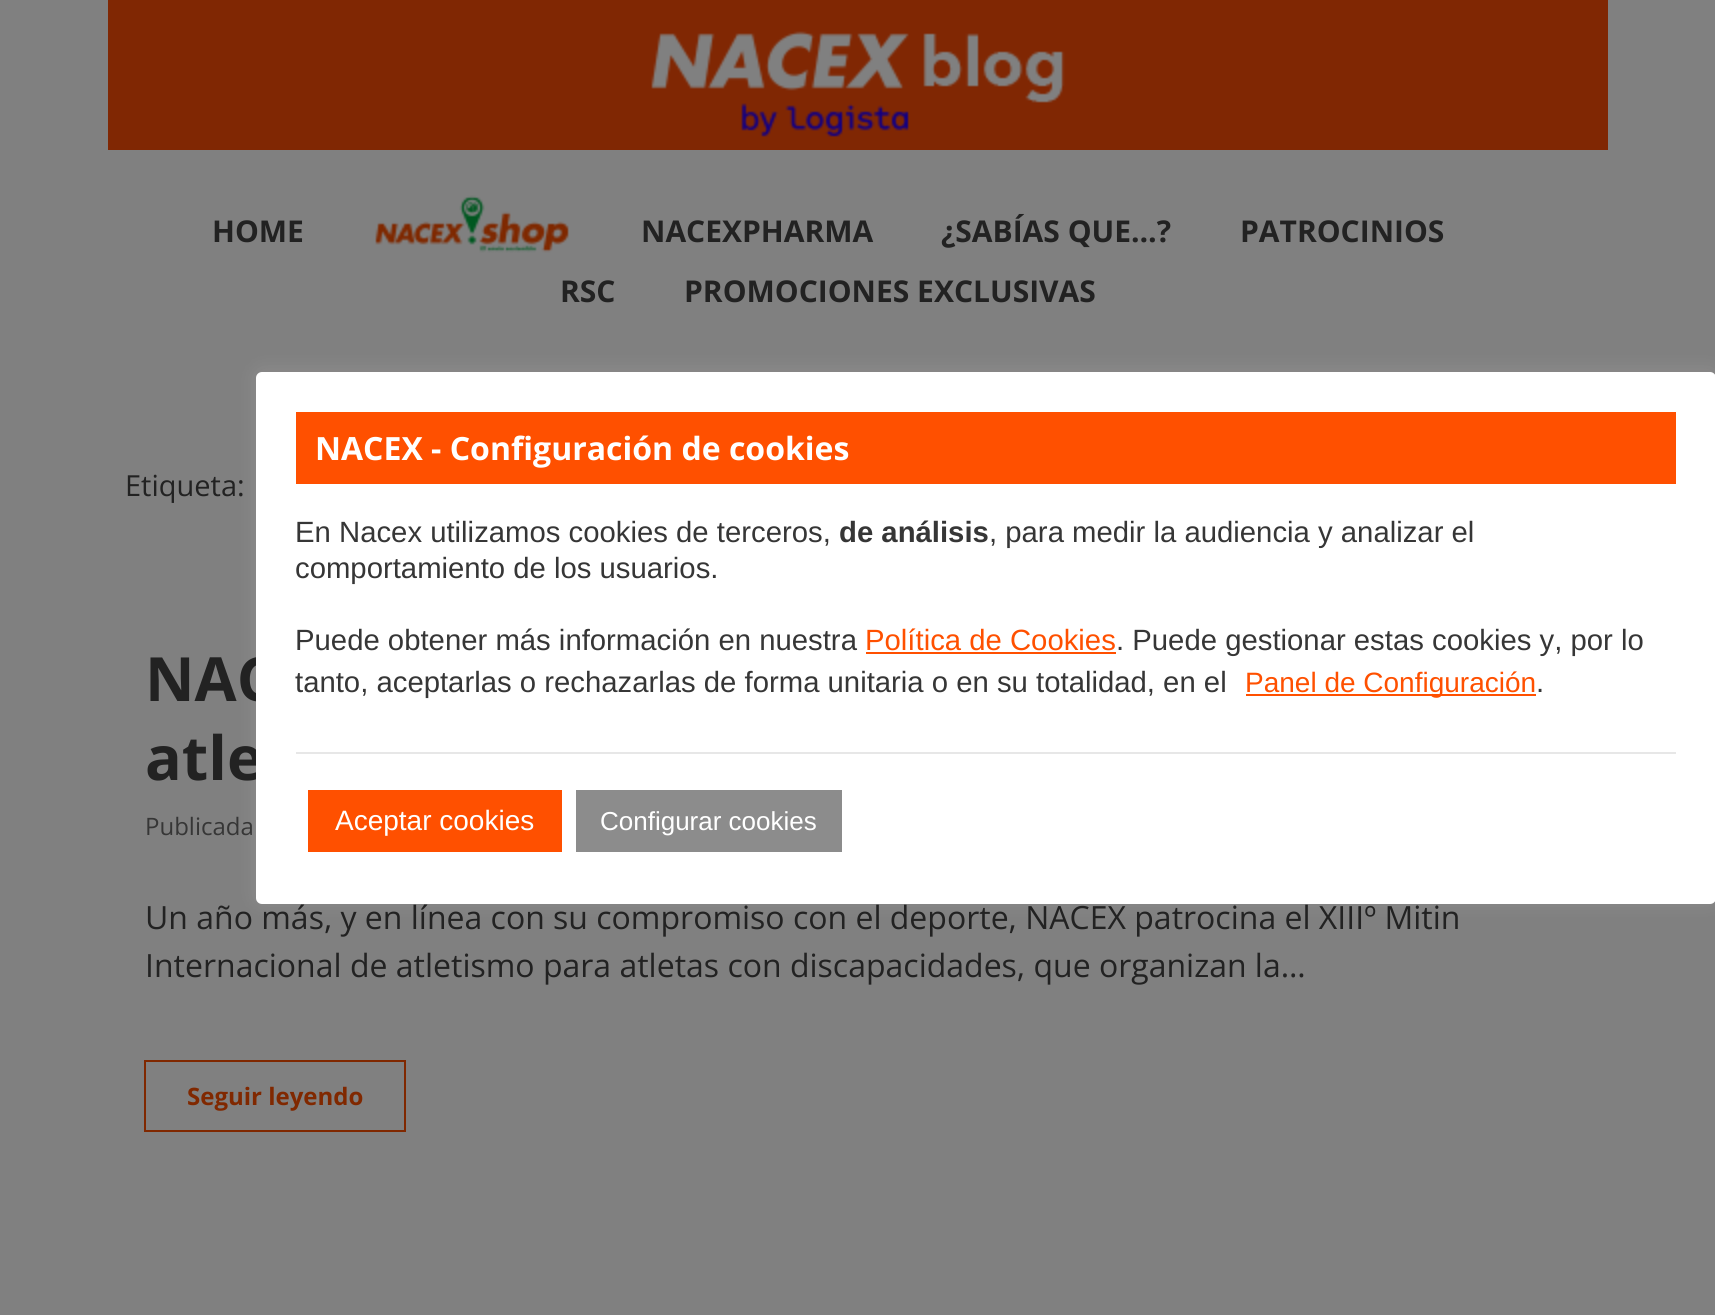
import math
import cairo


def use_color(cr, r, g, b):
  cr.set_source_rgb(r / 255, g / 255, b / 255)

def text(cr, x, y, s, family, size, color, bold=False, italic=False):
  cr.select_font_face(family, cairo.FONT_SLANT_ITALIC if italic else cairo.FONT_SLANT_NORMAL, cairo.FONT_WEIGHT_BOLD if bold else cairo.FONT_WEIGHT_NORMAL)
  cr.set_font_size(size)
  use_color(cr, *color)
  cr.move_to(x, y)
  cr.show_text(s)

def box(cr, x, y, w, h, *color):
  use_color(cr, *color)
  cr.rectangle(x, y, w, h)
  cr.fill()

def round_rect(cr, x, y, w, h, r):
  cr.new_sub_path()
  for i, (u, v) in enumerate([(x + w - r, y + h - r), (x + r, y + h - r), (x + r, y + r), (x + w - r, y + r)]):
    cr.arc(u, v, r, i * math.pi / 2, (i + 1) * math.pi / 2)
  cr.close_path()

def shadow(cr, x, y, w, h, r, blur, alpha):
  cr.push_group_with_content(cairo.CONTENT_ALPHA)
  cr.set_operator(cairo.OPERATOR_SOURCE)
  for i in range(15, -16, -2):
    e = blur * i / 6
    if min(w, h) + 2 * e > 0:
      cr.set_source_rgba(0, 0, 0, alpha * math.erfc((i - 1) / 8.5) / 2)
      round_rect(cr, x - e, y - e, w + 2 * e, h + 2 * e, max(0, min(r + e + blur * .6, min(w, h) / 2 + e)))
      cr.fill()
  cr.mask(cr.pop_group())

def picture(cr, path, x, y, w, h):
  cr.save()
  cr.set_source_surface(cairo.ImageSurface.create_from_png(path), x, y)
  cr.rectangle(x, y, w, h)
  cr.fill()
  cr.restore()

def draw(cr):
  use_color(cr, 128, 128, 128)
  cr.paint()
  box(cr, 108, 0, 1500, 150, 128, 39, 3)
  picture(cr, "img_01.png", 651, 31, 414, 106)
  picture(cr, "img_02.png", 375, 195, 194, 58)
  cr.rectangle(145, 1061, 260, 70)
  use_color(cr, 128, 40, 0)
  cr.stroke()
  use_color(cr, 172, 171, 171)
  shadow(cr, 256, 370, 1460, 532, 6, 10, 0.3)
  text(cr, 212, 242, "HOME", "Open Sans", 30, (34, 34, 34), bold=True)
  text(cr, 641, 242, "NACEXPHARMA", "Open Sans", 30, (34, 34, 34), bold=True)
  text(cr, 941, 242, "¿SABÍAS QUE…?", "Open Sans", 30, (34, 34, 34), bold=True)
  text(cr, 1240, 242, "PATROCINIOS", "Open Sans", 30, (34, 34, 34), bold=True)
  text(cr, 560, 302, "RSC", "Open Sans", 30, (34, 34, 34), bold=True)
  text(cr, 684, 302, "PROMOCIONES EXCLUSIVAS", "Open Sans", 30, (34, 34, 34), bold=True)
  text(cr, 125, 496, "Etiqueta:", "Open Sans", 29, (34, 34, 34))
  text(cr, 145, 701, "NAC", "Open Sans", 61, (34, 34, 34), bold=True)
  text(cr, 145, 780, "atle", "Open Sans", 61, (34, 34, 34), bold=True)
  text(cr, 145, 835, "Publicada", "Open Sans", 24, (54, 54, 54))
  text(cr, 145, 929, "Un año más, y en línea con su compromiso con el deporte, NACEX patrocina el XIIIº Mitin", "Open Sans", 32, (34, 34, 34))
  text(cr, 145, 977, "Internacional de atletismo para atletas con discapacidades, que organizan la…", "Open Sans", 32, (34, 34, 34))
  text(cr, 187, 1105, "Seguir leyendo", "Open Sans", 24, (128, 40, 0), bold=True)
  use_color(cr, 255, 255, 255)
  round_rect(cr, 256, 372, 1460, 532, 6)
  cr.fill()
  box(cr, 296, 412, 1380, 72, 255, 80, 0)
  text(cr, 315, 460, "NACEX - Configuración de cookies", "Open Sans", 32, (255, 255, 255), bold=True)
  text(cr, 295, 542, "En Nacex utilizamos cookies de terceros,", "Liberation Sans", 29.3, (54, 54, 54))
  text(cr, 839, 542, "de análisis", "Liberation Sans", 29.3, (54, 54, 54), bold=True)
  text(cr, 989, 542, ", para medir la audiencia y analizar el", "Liberation Sans", 29.3, (54, 54, 54))
  text(cr, 295, 578, "comportamiento de los usuarios.", "Liberation Sans", 29.3, (54, 54, 54))
  text(cr, 295, 650, "Puede obtener más información en nuestra", "Liberation Sans", 29.3, (54, 54, 54))
  text(cr, 865, 650, "Política de Cookies", "Liberation Sans", 29.3, (255, 80, 0))
  box(cr, 866, 652, 250, 2, 255, 80, 0)
  text(cr, 1116, 650, ". Puede gestionar estas cookies y, por lo", "Liberation Sans", 29.3, (54, 54, 54))
  text(cr, 295, 692, "tanto, aceptarlas o rechazarlas de forma unitaria o en su totalidad, en el", "Liberation Sans", 29.3, (54, 54, 54))
  box(cr, 1246, 694, 290, 2, 255, 80, 0)
  text(cr, 1245, 692, "Panel de Configuración", "Liberation Sans", 28, (255, 80, 0))
  text(cr, 1536, 692, ".", "Liberation Sans", 29.3, (54, 54, 54))
  box(cr, 296, 752, 1380, 2, 231, 231, 231)
  box(cr, 308, 790, 254, 62, 255, 80, 0)
  text(cr, 335, 830, "Aceptar cookies", "Liberation Sans", 28, (255, 255, 255))
  box(cr, 576, 790, 266, 62, 140, 140, 140)
  text(cr, 600, 830, "Configurar cookies", "Liberation Sans", 26, (255, 255, 255))


surface = cairo.ImageSurface(cairo.FORMAT_RGB24, 1715, 1315)
cr = cairo.Context(surface)
options = cairo.FontOptions()
options.set_hint_metrics(cairo.HINT_METRICS_OFF)
options.set_hint_style(cairo.HINT_STYLE_NONE)
cr.set_font_options(options)
cr.set_miter_limit(4)
draw(cr)
surface.write_to_png("out.png")
